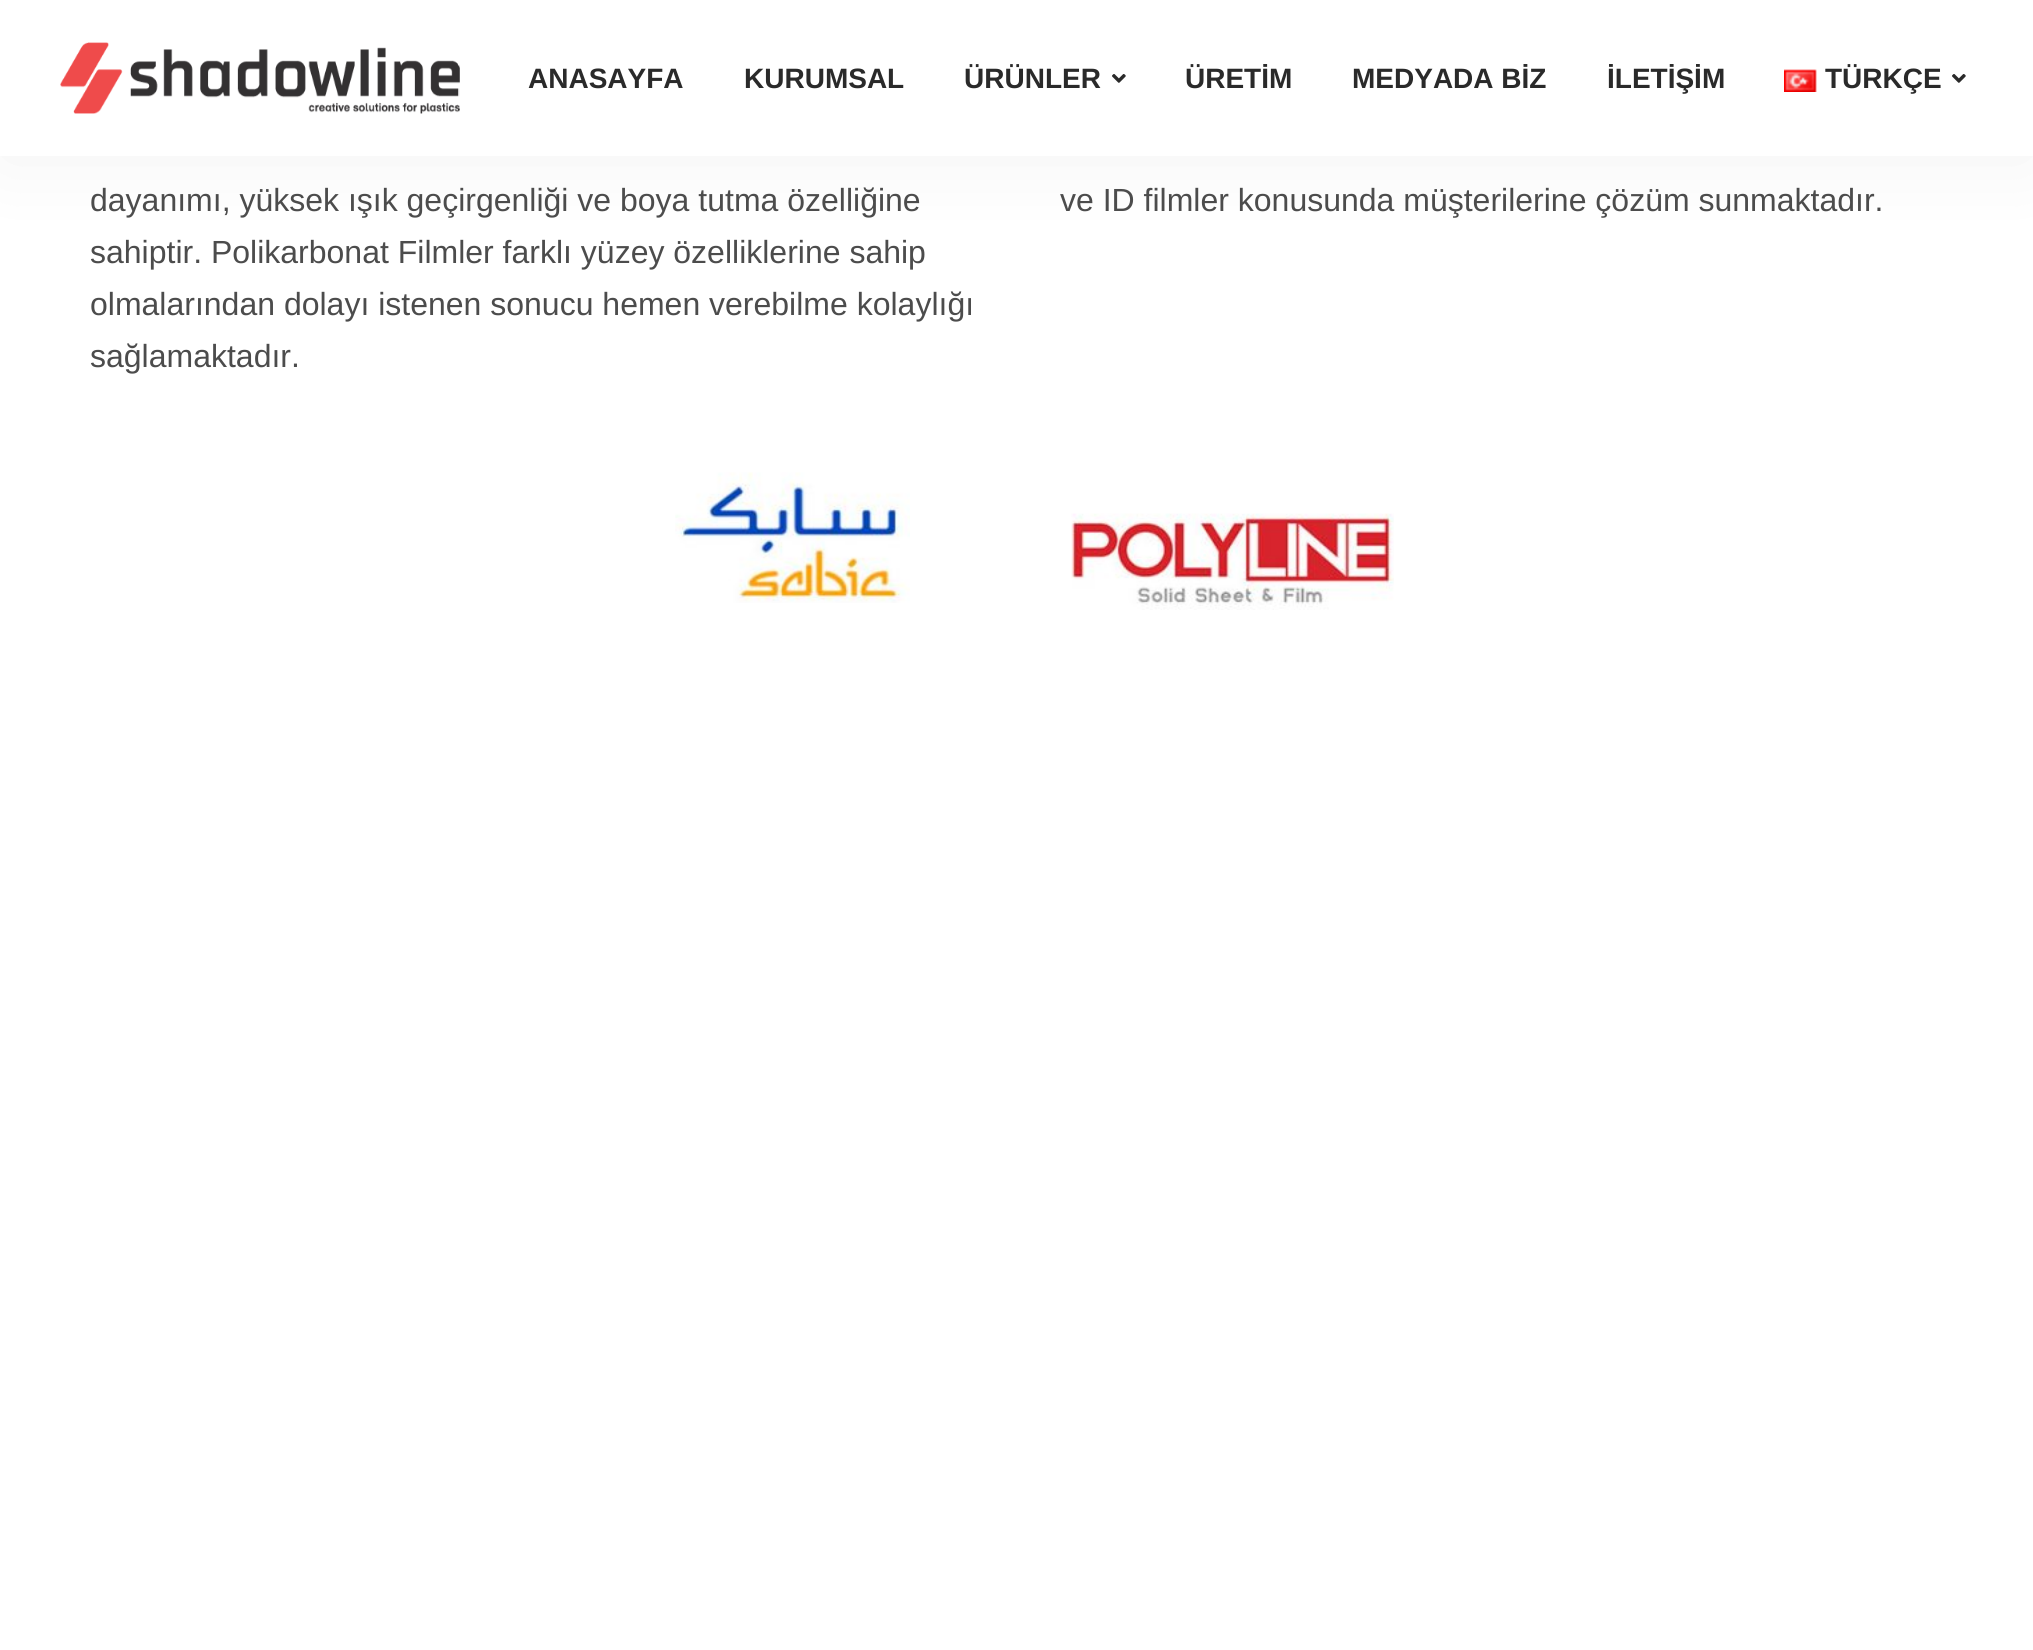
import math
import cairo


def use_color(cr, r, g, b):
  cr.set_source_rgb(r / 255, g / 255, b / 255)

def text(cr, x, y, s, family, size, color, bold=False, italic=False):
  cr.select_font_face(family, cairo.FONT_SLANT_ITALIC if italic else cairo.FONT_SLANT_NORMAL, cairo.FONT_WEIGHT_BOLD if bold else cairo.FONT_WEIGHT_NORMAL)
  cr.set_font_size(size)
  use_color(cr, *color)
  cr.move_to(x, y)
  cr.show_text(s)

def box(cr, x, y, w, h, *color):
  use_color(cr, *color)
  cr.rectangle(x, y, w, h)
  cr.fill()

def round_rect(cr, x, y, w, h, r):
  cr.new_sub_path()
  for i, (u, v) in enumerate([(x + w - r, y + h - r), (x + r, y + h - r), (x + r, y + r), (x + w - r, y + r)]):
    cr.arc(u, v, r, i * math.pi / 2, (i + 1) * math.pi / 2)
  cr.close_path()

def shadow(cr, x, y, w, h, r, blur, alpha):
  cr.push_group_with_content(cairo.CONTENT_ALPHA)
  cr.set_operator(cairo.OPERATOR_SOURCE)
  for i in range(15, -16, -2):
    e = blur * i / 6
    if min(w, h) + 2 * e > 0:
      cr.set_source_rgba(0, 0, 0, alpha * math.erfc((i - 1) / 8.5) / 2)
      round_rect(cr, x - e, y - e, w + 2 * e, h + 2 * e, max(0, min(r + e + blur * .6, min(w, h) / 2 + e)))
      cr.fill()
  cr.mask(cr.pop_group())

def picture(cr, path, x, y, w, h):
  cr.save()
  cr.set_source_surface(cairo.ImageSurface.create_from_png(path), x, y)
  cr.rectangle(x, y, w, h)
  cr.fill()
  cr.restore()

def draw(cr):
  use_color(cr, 255, 255, 255)
  cr.paint()
  use_color(cr, 15, 15, 15)
  shadow(cr, 0, -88, 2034, 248, 0, 40, 0.05)
  box(cr, 0, 0, 2033, 156, 255, 255, 255)
  picture(cr, "img_01.png", 60, 42, 400, 72)
  picture(cr, "img_02.png", 1112, 74, 14, 9)
  picture(cr, "img_03.png", 1784, 69, 33, 23)
  picture(cr, "img_02.png", 1952, 74, 14, 9)
  picture(cr, "img_04.png", 675, 472, 235, 131)
  picture(cr, "img_05.png", 1071, 513, 323, 97)
  text(cr, 528, 88, "ANASAYFA", "Liberation Sans", 28, (42, 42, 42), bold=True)
  text(cr, 744, 88, "KURUMSAL", "Liberation Sans", 28, (42, 42, 42), bold=True)
  text(cr, 964, 88, "ÜRÜNLER", "Liberation Sans", 28, (42, 42, 42), bold=True)
  text(cr, 1185, 88, "ÜRETİM", "Liberation Sans", 28, (42, 42, 42), bold=True)
  text(cr, 1352, 88, "MEDYADA BİZ", "Liberation Sans", 28, (42, 42, 42), bold=True)
  text(cr, 1607, 88, "İLETİŞİM", "Liberation Sans", 28, (42, 42, 42), bold=True)
  text(cr, 1825, 88, "TÜRKÇE", "Liberation Sans", 28, (42, 42, 42), bold=True)
  text(cr, 90, 211, "dayanımı, yüksek ışık geçirgenliği ve boya tutma özelliğine", "Liberation Sans", 32, (76, 76, 76))
  text(cr, 90, 263, "sahiptir. Polikarbonat Filmler farklı yüzey özelliklerine sahip", "Liberation Sans", 32, (76, 76, 76))
  text(cr, 90, 315, "olmalarından dolayı istenen sonucu hemen verebilme kolaylığı", "Liberation Sans", 32, (76, 76, 76))
  text(cr, 90, 367, "sağlamaktadır.", "Liberation Sans", 32, (76, 76, 76))
  text(cr, 1060, 211, "ve ID filmler konusunda müşterilerine çözüm sunmaktadır.", "Liberation Sans", 32, (76, 76, 76))


surface = cairo.ImageSurface(cairo.FORMAT_RGB24, 2033, 1650)
cr = cairo.Context(surface)
options = cairo.FontOptions()
options.set_hint_metrics(cairo.HINT_METRICS_OFF)
options.set_hint_style(cairo.HINT_STYLE_NONE)
cr.set_font_options(options)
cr.set_miter_limit(4)
draw(cr)
surface.write_to_png("out.png")
